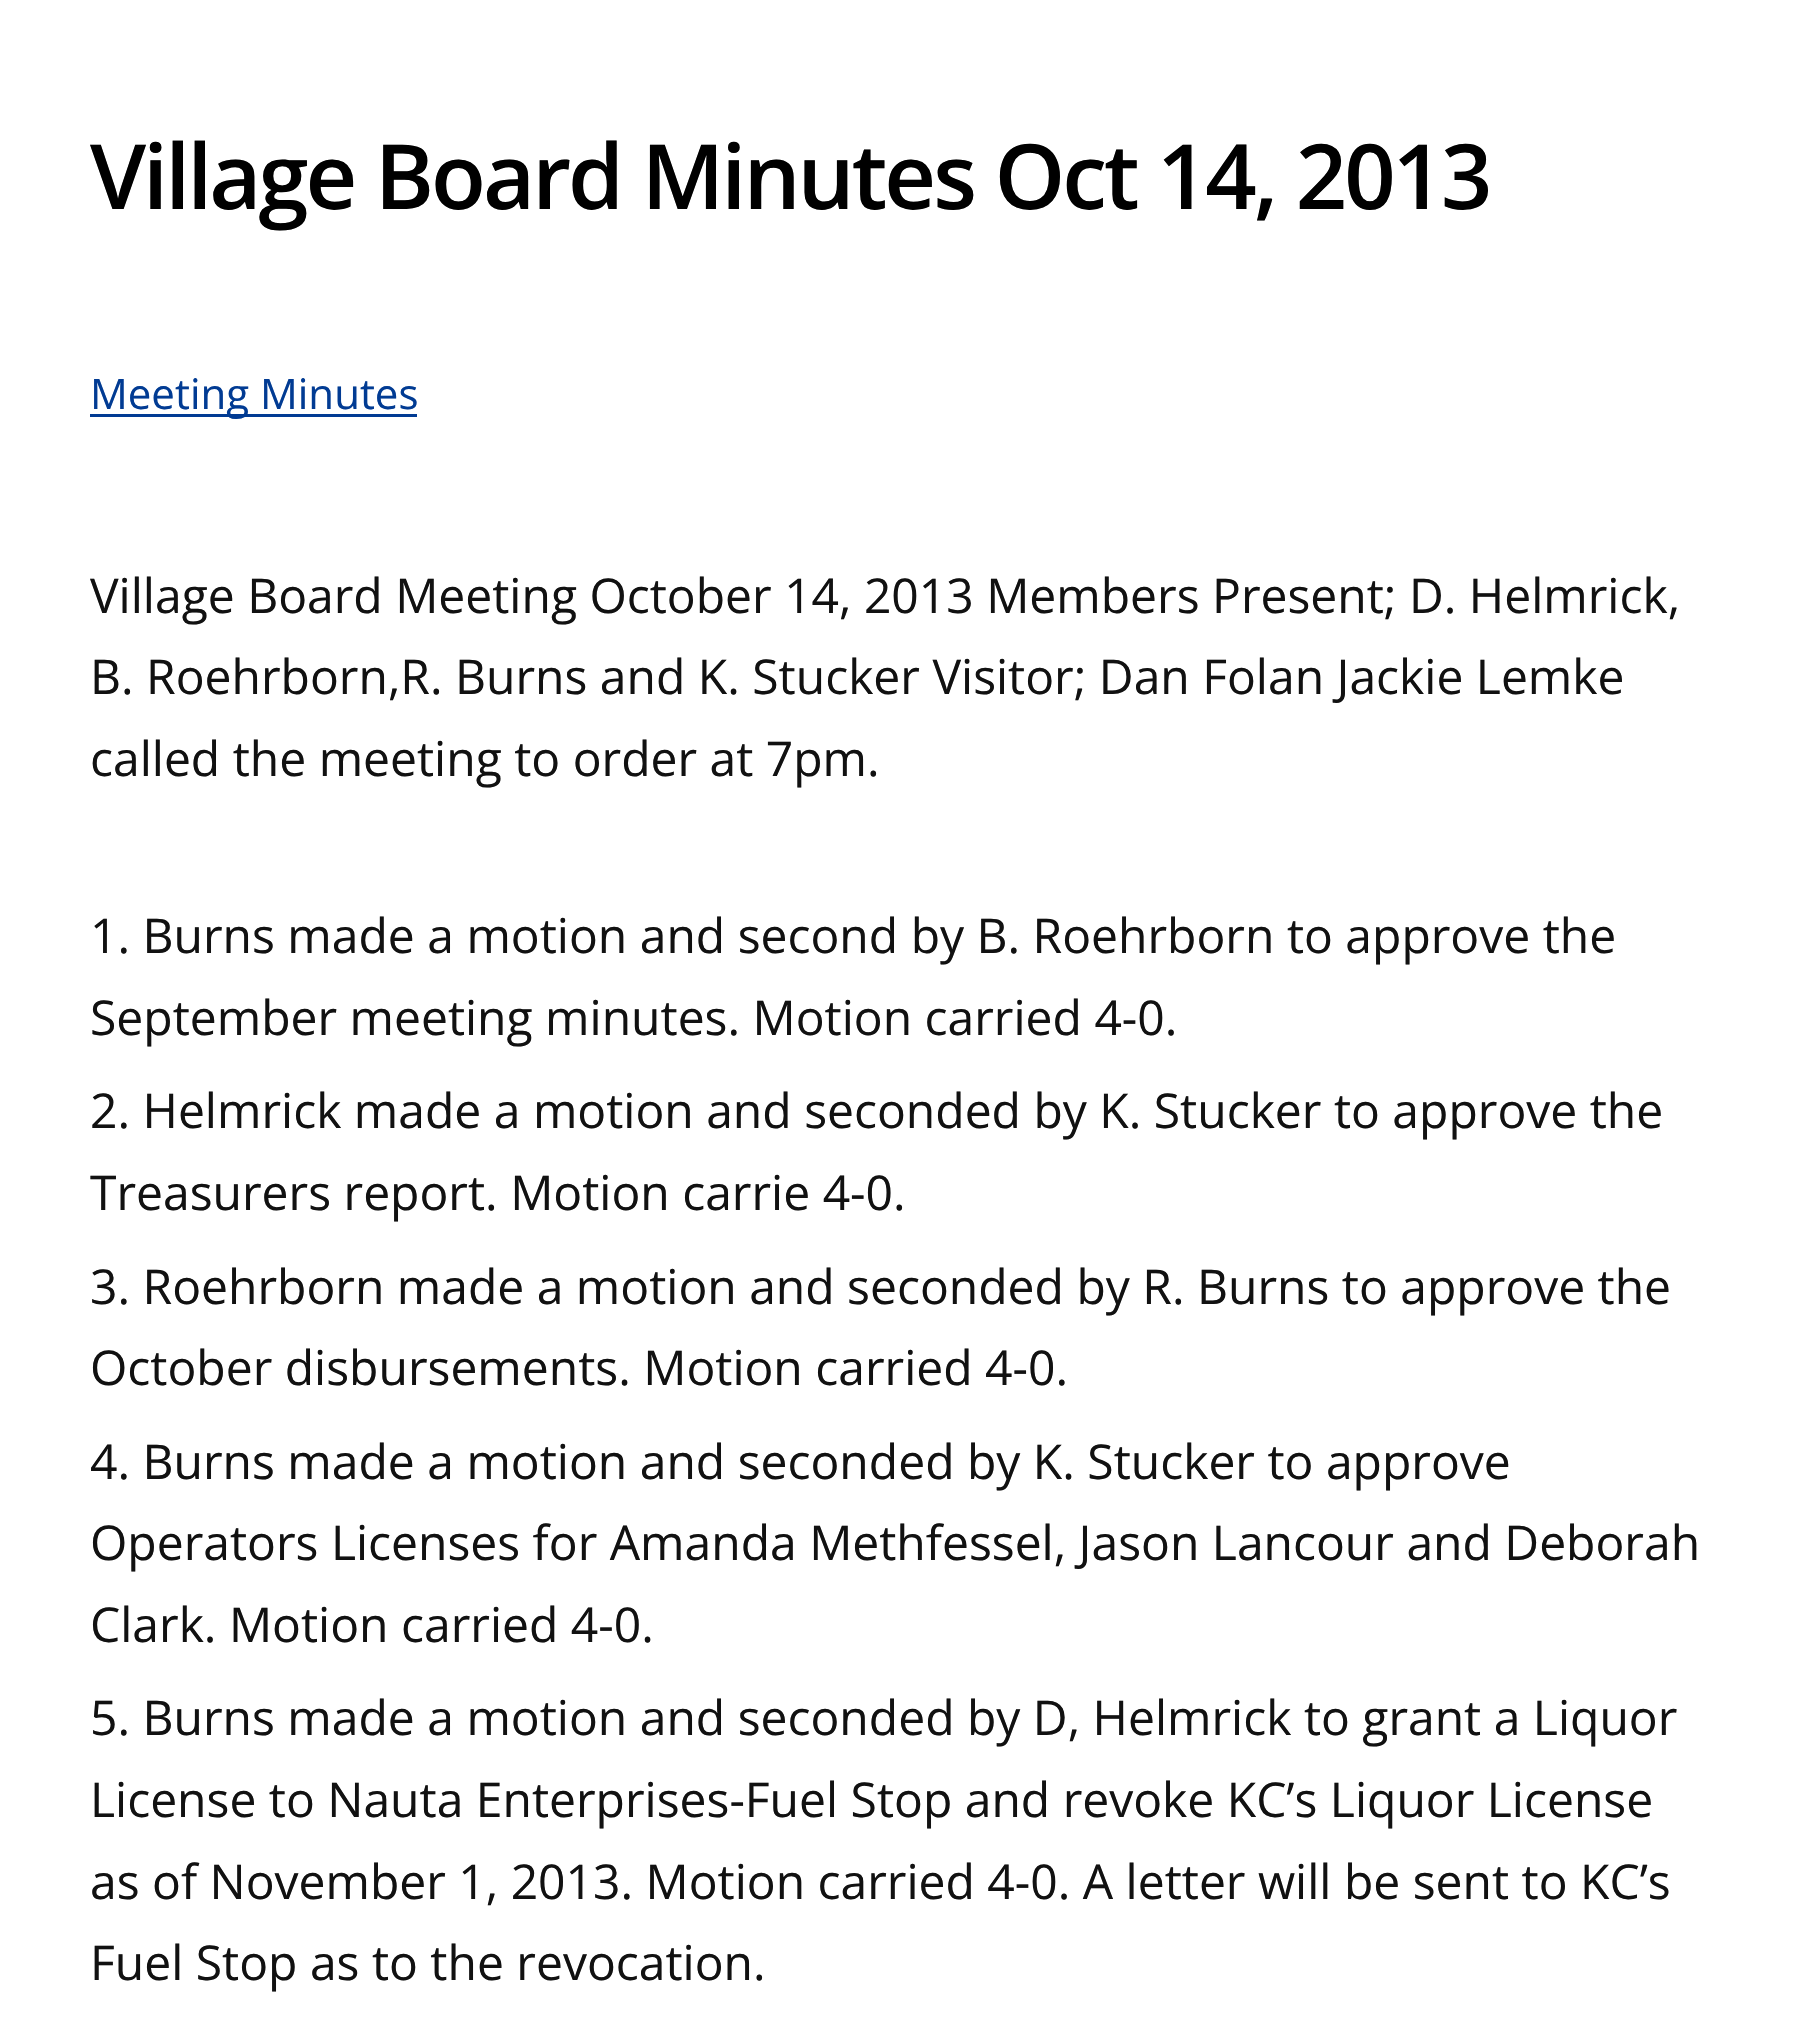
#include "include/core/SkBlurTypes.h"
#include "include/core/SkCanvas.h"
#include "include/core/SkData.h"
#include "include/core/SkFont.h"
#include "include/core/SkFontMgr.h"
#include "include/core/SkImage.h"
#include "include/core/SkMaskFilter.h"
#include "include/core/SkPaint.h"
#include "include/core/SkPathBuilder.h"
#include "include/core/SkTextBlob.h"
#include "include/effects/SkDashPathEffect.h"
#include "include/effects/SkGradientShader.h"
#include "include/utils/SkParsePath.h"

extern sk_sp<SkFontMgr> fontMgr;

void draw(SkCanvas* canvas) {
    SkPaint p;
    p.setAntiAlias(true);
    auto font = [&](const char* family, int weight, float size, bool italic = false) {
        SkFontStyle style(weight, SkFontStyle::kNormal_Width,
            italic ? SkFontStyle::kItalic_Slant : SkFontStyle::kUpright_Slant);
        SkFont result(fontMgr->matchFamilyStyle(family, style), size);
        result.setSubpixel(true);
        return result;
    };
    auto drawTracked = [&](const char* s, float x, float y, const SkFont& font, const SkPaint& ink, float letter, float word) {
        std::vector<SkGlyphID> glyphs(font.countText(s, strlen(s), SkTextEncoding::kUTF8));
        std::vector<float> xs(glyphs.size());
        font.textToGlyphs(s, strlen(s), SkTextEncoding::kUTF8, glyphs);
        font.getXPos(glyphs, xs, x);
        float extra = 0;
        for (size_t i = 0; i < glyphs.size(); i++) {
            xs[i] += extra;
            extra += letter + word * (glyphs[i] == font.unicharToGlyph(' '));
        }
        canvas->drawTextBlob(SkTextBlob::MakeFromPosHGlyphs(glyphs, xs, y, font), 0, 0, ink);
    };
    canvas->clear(0xFFFFFFFF);
    auto font1 = font("Open Sans", 600, 90);
    p.setColor(0xFF000000);
    drawTracked("Village Board Minutes Oct 14, 2013", 90, 209, font1, p, -3, 0);
    p.setColor(0xFF013B93);
    canvas->drawRect(SkRect::MakeLTRB(90, 414, 417, 417), p);
    auto font2 = font("Open Sans", 400, 42);
    canvas->drawString("Meeting Minutes", 90, 409, font2, p);
    auto font3 = font("Open Sans", 400, 48);
    p.setColor(0xFF111111);
    {
        const struct { const char* s; float x, y; } items[] = {
            {"Village Board Meeting October 14, 2013 Members Present; D. Helmrick,", 90, 613},
            {"B. Roehrborn,R. Burns and K. Stucker Visitor; Dan Folan Jackie Lemke", 90, 694},
            {"called the meeting to order at 7pm.", 90, 776},
            {"1. Burns made a motion and second by B. Roehrborn to approve the", 90, 953},
            {"September meeting minutes. Motion carried 4-0.", 90, 1035},
            {"2. Helmrick made a motion and seconded by K. Stucker to approve the", 90, 1128},
            {"Treasurers report. Motion carrie 4-0.", 90, 1210},
            {"3. Roehrborn made a motion and seconded by R. Burns to approve the", 90, 1304},
            {"October disbursements. Motion carried 4-0.", 90, 1385},
            {"4. Burns made a motion and seconded by K. Stucker to approve", 90, 1479},
            {"Operators Licenses for Amanda Methfessel, Jason Lancour and Deborah", 90, 1560},
            {"Clark. Motion carried 4-0.", 90, 1642},
            {"5. Burns made a motion and seconded by D, Helmrick to grant a Liquor", 90, 1735},
            {"License to Nauta Enterprises-Fuel Stop and revoke KC’s Liquor License", 90, 1817},
            {"as of November 1, 2013. Motion carried 4-0. A letter will be sent to KC’s", 90, 1899},
            {"Fuel Stop as to the revocation.", 90, 1980},
        };
        for (auto [s, x, y] : items) {
            canvas->drawString(s, x, y, font3, p);
        }
    }
}
